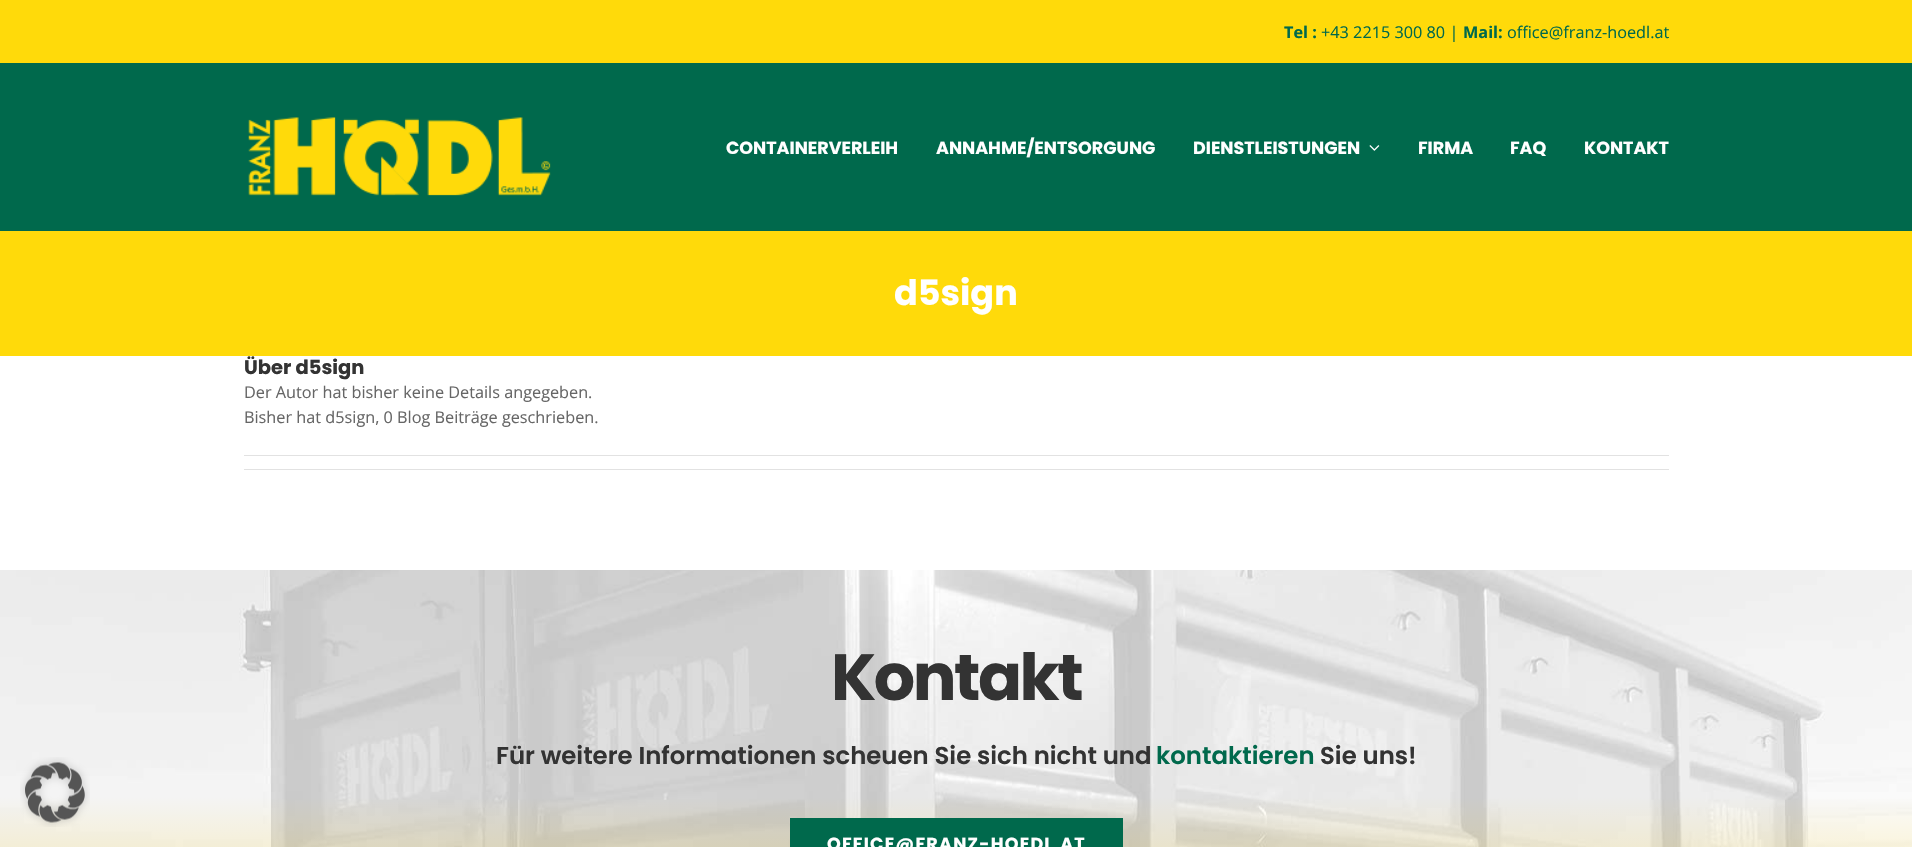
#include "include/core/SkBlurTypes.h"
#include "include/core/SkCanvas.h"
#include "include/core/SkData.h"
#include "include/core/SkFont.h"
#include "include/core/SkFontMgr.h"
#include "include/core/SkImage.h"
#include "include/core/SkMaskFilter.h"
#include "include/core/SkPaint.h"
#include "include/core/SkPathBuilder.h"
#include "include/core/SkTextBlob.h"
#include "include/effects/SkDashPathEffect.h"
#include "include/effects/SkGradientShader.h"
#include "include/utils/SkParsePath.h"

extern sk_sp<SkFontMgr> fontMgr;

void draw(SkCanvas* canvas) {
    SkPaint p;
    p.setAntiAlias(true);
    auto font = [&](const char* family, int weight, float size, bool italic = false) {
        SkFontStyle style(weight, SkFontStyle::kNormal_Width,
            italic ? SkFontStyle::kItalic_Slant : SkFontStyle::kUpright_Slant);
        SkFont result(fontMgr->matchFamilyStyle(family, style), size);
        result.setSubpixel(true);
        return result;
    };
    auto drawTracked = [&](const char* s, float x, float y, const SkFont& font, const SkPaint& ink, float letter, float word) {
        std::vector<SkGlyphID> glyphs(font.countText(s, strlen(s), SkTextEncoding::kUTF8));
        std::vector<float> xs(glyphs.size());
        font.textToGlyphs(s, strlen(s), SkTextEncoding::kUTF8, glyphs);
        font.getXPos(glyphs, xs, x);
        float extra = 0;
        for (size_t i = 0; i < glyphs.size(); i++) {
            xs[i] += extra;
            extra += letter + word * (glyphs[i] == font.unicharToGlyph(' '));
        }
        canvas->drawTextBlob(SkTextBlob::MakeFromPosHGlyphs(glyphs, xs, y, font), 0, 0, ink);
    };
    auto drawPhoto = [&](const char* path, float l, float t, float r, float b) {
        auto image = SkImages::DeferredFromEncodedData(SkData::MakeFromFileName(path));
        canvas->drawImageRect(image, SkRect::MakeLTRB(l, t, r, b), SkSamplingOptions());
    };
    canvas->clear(0xFFFFFFFF);
    drawPhoto("media/4.png", 0, 570, 1912, 847);
    drawPhoto("media/1.png", 20, 757, 90, 827);
    p.setColor(0xFFFFDA0A);
    canvas->drawRect(SkRect::MakeLTRB(0, 0, 1912, 63), p);
    auto font1 = font("Open Sans", 700, 16.25f);
    p.setColor(0xFF00694C);
    canvas->drawString("Tel :", 1284, 38, font1, p);
    auto font2 = font("Open Sans", 400, 16.25f);
    canvas->drawString("+43 2215 300 80 |", 1321, 38, font2, p);
    canvas->drawString("Mail:", 1463, 38, font1, p);
    canvas->drawString("office@franz-hoedl.at", 1507, 38, font2, p);
    canvas->drawRect(SkRect::MakeLTRB(0, 63, 1912, 231), p);
    drawPhoto("media/2.png", 248, 117, 551, 196);
    auto font3 = font("Poppins", 700, 17.5f);
    p.setColor(0xFFFFFFFF);
    {
        const struct { const char* s; float x, y; } items[] = {
            {"CONTAINERVERLEIH", 726, 154},
            {"ANNAHME/ENTSORGUNG", 936, 154},
            {"DIENSTLEISTUNGEN", 1193, 154},
        };
        for (auto [s, x, y] : items) {
            canvas->drawString(s, x, y, font3, p);
        }
    }
    drawPhoto("media/3.png", 1369, 145, 1380, 151);
    {
        const struct { const char* s; float x, y; } items[] = {
            {"FIRMA", 1418, 154},
            {"FAQ", 1510, 154},
            {"KONTAKT", 1584, 154},
        };
        for (auto [s, x, y] : items) {
            canvas->drawString(s, x, y, font3, p);
        }
    }
    p.setColor(0xFFFFDA0A);
    canvas->drawRect(SkRect::MakeLTRB(0, 231, 1912, 356), p);
    auto font4 = font("Poppins", 700, 35);
    p.setColor(0xFFFFFFFF);
    canvas->drawString("d5sign", 894, 305, font4, p);
    auto font5 = font("Poppins", 700, 19.5f);
    p.setColor(0xFF333333);
    canvas->drawString("Über d5sign", 244, 374, font5, p);
    p.setColor(0xFF666666);
    canvas->drawString("Der Autor hat bisher keine Details angegeben.", 244, 398, font2, p);
    canvas->drawString("Bisher hat d5sign, 0 Blog Beiträge geschrieben.", 244, 423, font2, p);
    p.setColor(0xFFE2E2E2);
    canvas->drawRect(SkRect::MakeLTRB(244, 455, 1669, 456), p);
    canvas->drawRect(SkRect::MakeLTRB(244, 469, 1669, 470), p);
    auto font6 = font("Poppins", 700, 65);
    p.setColor(0xFF333333);
    drawTracked("Kontakt", 831, 700, font6, p, -2.5f, 0);
    auto font7 = font("Poppins", 600, 24.4f);
    canvas->drawString("Für weitere Informationen scheuen Sie sich nicht und", 496, 764, font7, p);
    p.setColor(0xFF00694C);
    canvas->drawString("kontaktieren", 1156, 764, font7, p);
    p.setColor(0xFF333333);
    canvas->drawString("Sie uns!", 1320, 764, font7, p);
    p.setColor(0xFF00694C);
    canvas->drawRect(SkRect::MakeLTRB(790, 818, 1123, 847), p);
    p.setColor(0xFFFFFFFF);
    drawTracked("OFFICE@FRANZ-HOEDL.AT", 827, 850, font3, p, 1.25f, 0);
}
